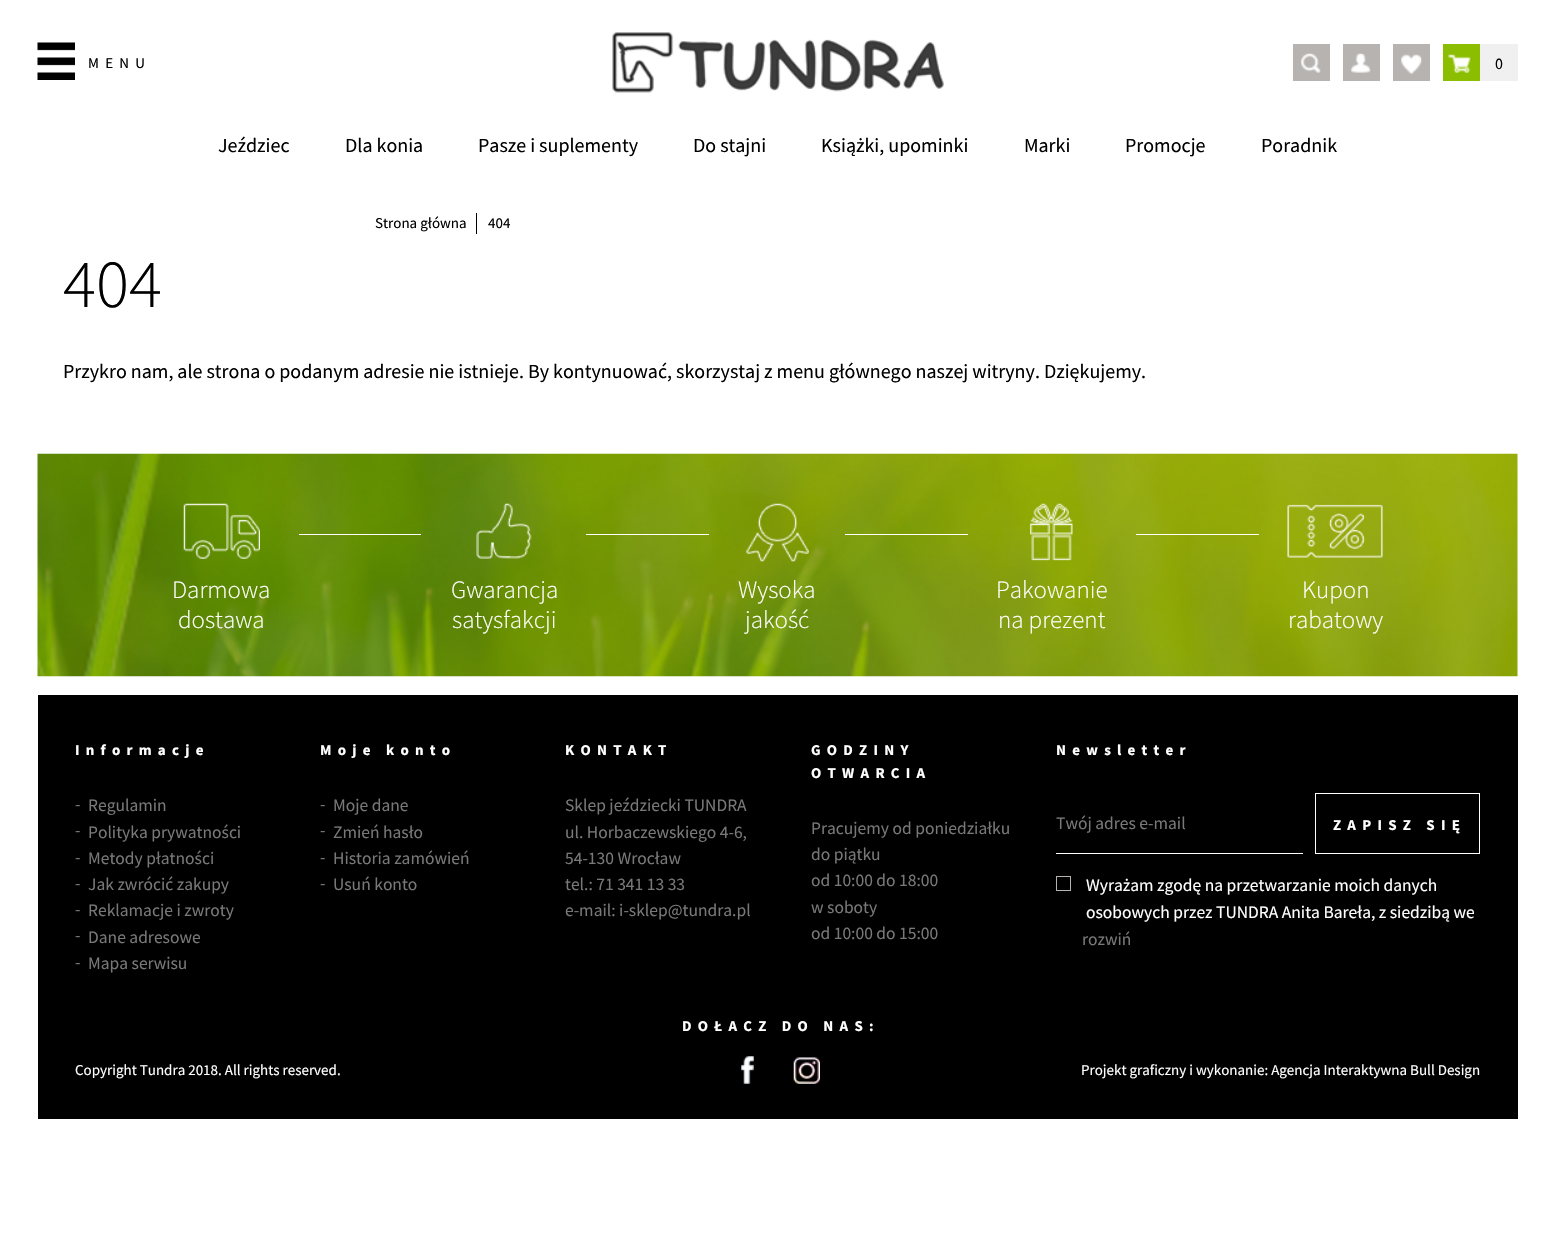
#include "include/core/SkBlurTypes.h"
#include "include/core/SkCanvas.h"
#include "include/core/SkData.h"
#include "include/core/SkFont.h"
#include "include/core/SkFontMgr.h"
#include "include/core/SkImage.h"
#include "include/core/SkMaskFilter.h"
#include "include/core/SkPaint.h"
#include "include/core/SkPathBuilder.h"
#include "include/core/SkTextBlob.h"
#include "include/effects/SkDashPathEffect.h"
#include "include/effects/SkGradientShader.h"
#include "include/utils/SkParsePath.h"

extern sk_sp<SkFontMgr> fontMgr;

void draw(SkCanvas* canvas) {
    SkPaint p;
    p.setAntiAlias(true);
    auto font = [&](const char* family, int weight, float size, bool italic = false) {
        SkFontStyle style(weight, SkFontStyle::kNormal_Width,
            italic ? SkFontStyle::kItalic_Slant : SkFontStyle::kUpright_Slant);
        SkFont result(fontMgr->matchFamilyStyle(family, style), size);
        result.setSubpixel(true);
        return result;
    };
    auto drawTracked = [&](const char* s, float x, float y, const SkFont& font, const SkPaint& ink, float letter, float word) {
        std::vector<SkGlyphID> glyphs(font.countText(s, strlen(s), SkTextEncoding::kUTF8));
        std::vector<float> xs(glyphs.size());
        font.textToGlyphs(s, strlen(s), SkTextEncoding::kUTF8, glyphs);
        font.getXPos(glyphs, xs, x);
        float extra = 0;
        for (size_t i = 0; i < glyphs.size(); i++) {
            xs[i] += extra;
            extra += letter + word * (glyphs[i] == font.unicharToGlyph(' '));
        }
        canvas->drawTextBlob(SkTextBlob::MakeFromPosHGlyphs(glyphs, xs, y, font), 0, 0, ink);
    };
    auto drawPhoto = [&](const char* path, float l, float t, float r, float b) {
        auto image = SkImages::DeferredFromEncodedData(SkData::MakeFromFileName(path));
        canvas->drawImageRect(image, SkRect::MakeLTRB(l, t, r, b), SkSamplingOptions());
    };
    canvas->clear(0xFFFFFFFF);
    drawPhoto("media/1.png", 37, 42, 75, 80);
    auto font1 = font("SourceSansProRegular", 400, 15);
    p.setColor(0xFF000000);
    drawTracked("MENU", 88, 68, font1, p, 6.25f, 0);
    drawPhoto("media/2.png", 612, 32, 944, 93);
    p.setColor(0xFFB6B3B1);
    canvas->drawRect(SkRect::MakeLTRB(1293, 44, 1330, 81), p);
    drawPhoto("media/3.png", 1301, 53, 1321, 73);
    canvas->drawRect(SkRect::MakeLTRB(1343, 44, 1380, 81), p);
    drawPhoto("media/4.png", 1351, 53, 1371, 73);
    canvas->drawRect(SkRect::MakeLTRB(1393, 44, 1430, 81), p);
    drawPhoto("media/5.png", 1401, 54, 1422, 74);
    p.setColor(0xFFF0F0F0);
    canvas->drawRect(SkRect::MakeLTRB(1480, 44, 1518, 81), p);
    p.setColor(0xFF8BBD00);
    canvas->drawRect(SkRect::MakeLTRB(1443, 44, 1480, 81), p);
    drawPhoto("media/6.png", 1448, 54, 1471, 73);
    auto font2 = font("SourceSansProRegular", 400, 16);
    p.setColor(0xFF000000);
    canvas->drawString("0", 1495, 69, font2, p);
    auto font3 = font("SourceSansProRegular", 400, 20);
    {
        const struct { const char* s; float x, y; } items[] = {
            {"Jeździec", 218, 152},
            {"Dla konia", 345, 152},
            {"Pasze i suplementy", 478, 152},
            {"Do stajni", 693, 152},
            {"Książki, upominki", 821, 152},
            {"Marki", 1024, 152},
            {"Promocje", 1125, 152},
            {"Poradnik", 1261, 152},
        };
        for (auto [s, x, y] : items) {
            canvas->drawString(s, x, y, font3, p);
        }
    }
    canvas->drawRect(SkRect::MakeLTRB(476, 213, 477, 234), p);
    canvas->drawString("Strona główna", 375, 228, font1, p);
    canvas->drawString("404", 488, 228, font1, p);
    auto font4 = font("Source Sans Pro", 300, 69);
    canvas->drawString("404", 63, 307, font4, p);
    canvas->drawString("Przykro nam, ale strona o podanym adresie nie istnieje. By kontynuować, skorzystaj z menu głównego naszej witryny. Dziękujemy.", 63, 378, font3, p);
    drawPhoto("media/7.png", 37, 453, 1518, 677);
    {
        const struct { float l, t, r, b; SkColor color; } items[] = {
            {299, 534, 421, 535, 0xFFFFFFFF},
            {586, 534, 709, 535, 0xFFFFFFFF},
            {845, 534, 968, 535, 0xFFFFFFFF},
            {1136, 534, 1259, 535, 0xFFFFFFFF},
        };
        for (auto [l, t, r, b, color] : items) {
            p.setColor(color);
            canvas->drawRect(SkRect::MakeLTRB(l, t, r, b), p);
        }
    }
    drawPhoto("media/8.png", 183, 503, 260, 559);
    auto font5 = font("Source Sans Pro", 300, 25);
    canvas->drawString("Darmowa", 172, 598, font5, p);
    canvas->drawString("dostawa", 178, 628, font5, p);
    drawPhoto("media/9.png", 476, 503, 532, 559);
    canvas->drawString("Gwarancja", 451, 598, font5, p);
    canvas->drawString("satysfakcji", 452, 628, font5, p);
    drawPhoto("media/10.png", 746, 503, 809, 562);
    canvas->drawString("Wysoka", 738, 598, font5, p);
    canvas->drawString("jakość", 745, 628, font5, p);
    drawPhoto("media/11.png", 1030, 503, 1073, 561);
    canvas->drawString("Pakowanie", 996, 598, font5, p);
    canvas->drawString("na prezent", 998, 628, font5, p);
    drawPhoto("media/12.png", 1287, 504, 1383, 558);
    canvas->drawString("Kupon", 1302, 598, font5, p);
    canvas->drawString("rabatowy", 1288, 628, font5, p);
    p.setColor(0xFF000000);
    canvas->drawRect(SkRect::MakeLTRB(38, 695, 1518, 1119), p);
    auto font6 = font("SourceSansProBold", 700, 15);
    p.setColor(0xFFFFFFFF);
    drawTracked("Informacje", 75, 755, font6, p, 6.25f, 0);
    auto font7 = font("SourceSansProRegular", 400, 17.5f);
    p.setColor(0xFF787878);
    {
        const struct { const char* s; float x, y; } items[] = {
            {"-", 75, 810},
            {"Regulamin", 88, 811},
            {"-", 75, 836},
            {"Polityka prywatności", 88, 838},
            {"-", 75, 863},
            {"Metody płatności", 88, 864},
            {"-", 75, 889},
            {"Jak zwrócić zakupy", 88, 890},
            {"-", 75, 915},
            {"Reklamacje i zwroty", 88, 916},
            {"-", 75, 941},
            {"Dane adresowe", 88, 943},
            {"-", 75, 968},
            {"Mapa serwisu", 88, 969},
        };
        for (auto [s, x, y] : items) {
            canvas->drawString(s, x, y, font7, p);
        }
    }
    p.setColor(0xFFFFFFFF);
    drawTracked("Moje konto", 320, 755, font6, p, 6.25f, 0);
    p.setColor(0xFF787878);
    {
        const struct { const char* s; float x, y; } items[] = {
            {"-", 320, 810},
            {"Moje dane", 333, 811},
            {"-", 320, 836},
            {"Zmień hasło", 333, 838},
            {"-", 320, 863},
            {"Historia zamówień", 333, 864},
            {"-", 320, 889},
            {"Usuń konto", 333, 890},
        };
        for (auto [s, x, y] : items) {
            canvas->drawString(s, x, y, font7, p);
        }
    }
    p.setColor(0xFFFFFFFF);
    drawTracked("KONTAKT", 565, 755, font6, p, 6.25f, 0);
    p.setColor(0xFF787878);
    {
        const struct { const char* s; float x, y; } items[] = {
            {"Sklep jeździecki TUNDRA", 565, 811},
            {"ul. Horbaczewskiego 4-6,", 565, 838},
            {"54-130 Wrocław", 565, 864},
            {"tel.: 71 341 13 33", 565, 890},
            {"e-mail: i-sklep@tundra.pl", 565, 916},
        };
        for (auto [s, x, y] : items) {
            canvas->drawString(s, x, y, font7, p);
        }
    }
    p.setColor(0xFFFFFFFF);
    drawTracked("GODZINY", 811, 755, font6, p, 6.25f, 0);
    drawTracked("OTWARCIA", 811, 778, font6, p, 6.25f, 0);
    p.setColor(0xFF787878);
    {
        const struct { const char* s; float x, y; } items[] = {
            {"Pracujemy od poniedziałku", 811, 834},
            {"do piątku", 811, 860},
            {"od 10:00 do 18:00", 811, 886},
            {"w soboty", 811, 913},
            {"od 10:00 do 15:00", 811, 939},
        };
        for (auto [s, x, y] : items) {
            canvas->drawString(s, x, y, font7, p);
        }
    }
    p.setColor(0xFFFFFFFF);
    drawTracked("Newsletter", 1056, 755, font6, p, 6.25f, 0);
    canvas->drawRect(SkRect::MakeLTRB(1056, 853, 1303, 854), p);
    p.setColor(0xFF787878);
    canvas->drawString("Twój adres e-mail", 1056, 829, font7, p);
    p.setStyle(SkPaint::kStroke_Style);
    p.setStrokeWidth(1);
    p.setColor(0xFFFFFFFF);
    canvas->drawRect(SkRect::MakeLTRB(1315.5f, 793.5f, 1479.5f, 853.5f), p);
    p.setStyle(SkPaint::kFill_Style);
    drawTracked("ZAPISZ SIĘ", 1333, 830, font6, p, 6.25f, 0);
    p.setStyle(SkPaint::kStroke_Style);
    p.setColor(0xFFB6B3B1);
    canvas->drawRect(SkRect::MakeLTRB(1056.5f, 876.5f, 1070.5f, 890.5f), p);
    p.setStyle(SkPaint::kFill_Style);
    p.setColor(0xFFFFFFFF);
    canvas->drawString("Wyrażam zgodę na przetwarzanie moich danych", 1086, 891, font7, p);
    canvas->drawString("osobowych przez TUNDRA Anita Bareła, z siedzibą we", 1086, 918, font7, p);
    p.setColor(0xFF787878);
    canvas->drawString("rozwiń", 1082, 945, font7, p);
    p.setColor(0xFFFFFFFF);
    drawTracked("DOŁACZ DO NAS:", 682, 1031, font6, p, 6.25f, 0);
    drawPhoto("media/13.png", 741, 1056, 754, 1084);
    drawPhoto("media/14.png", 793, 1057, 820, 1084);
    canvas->drawString("Copyright Tundra 2018. All rights reserved.", 75, 1075, font1, p);
    canvas->drawString("Projekt graficzny i wykonanie: Agencja Interaktywna Bull Design", 1081, 1075, font1, p);
}
